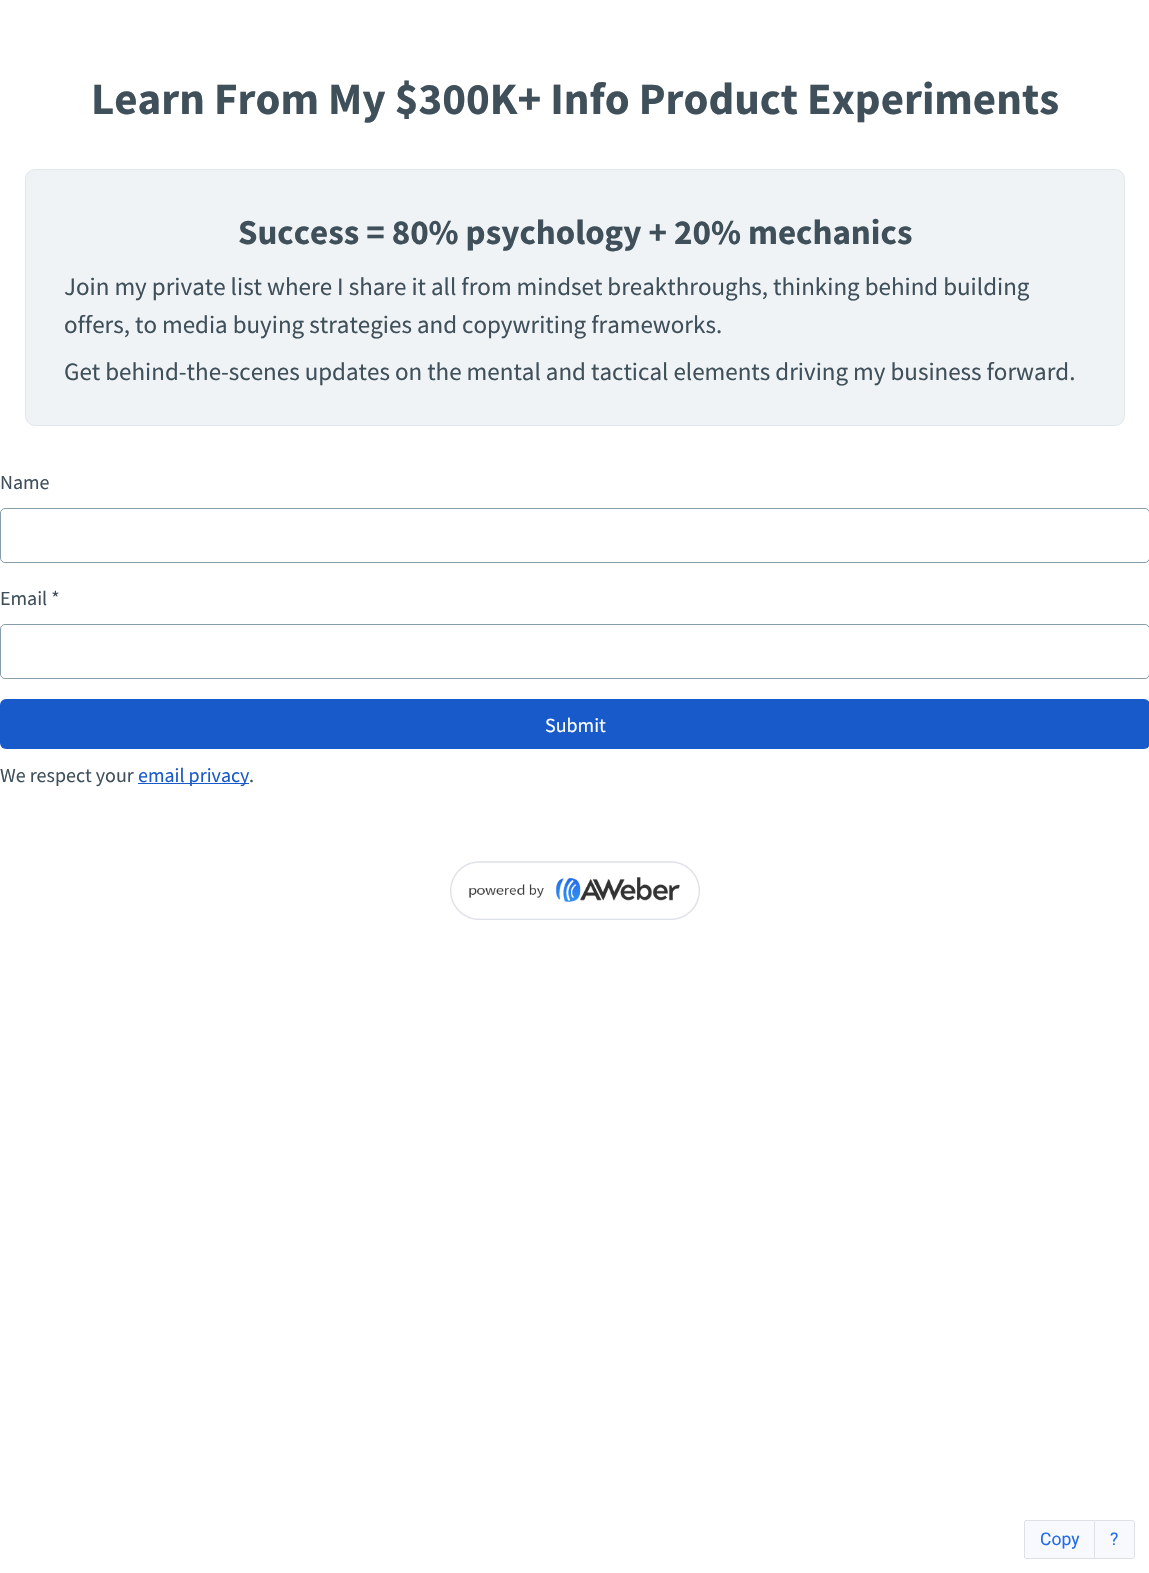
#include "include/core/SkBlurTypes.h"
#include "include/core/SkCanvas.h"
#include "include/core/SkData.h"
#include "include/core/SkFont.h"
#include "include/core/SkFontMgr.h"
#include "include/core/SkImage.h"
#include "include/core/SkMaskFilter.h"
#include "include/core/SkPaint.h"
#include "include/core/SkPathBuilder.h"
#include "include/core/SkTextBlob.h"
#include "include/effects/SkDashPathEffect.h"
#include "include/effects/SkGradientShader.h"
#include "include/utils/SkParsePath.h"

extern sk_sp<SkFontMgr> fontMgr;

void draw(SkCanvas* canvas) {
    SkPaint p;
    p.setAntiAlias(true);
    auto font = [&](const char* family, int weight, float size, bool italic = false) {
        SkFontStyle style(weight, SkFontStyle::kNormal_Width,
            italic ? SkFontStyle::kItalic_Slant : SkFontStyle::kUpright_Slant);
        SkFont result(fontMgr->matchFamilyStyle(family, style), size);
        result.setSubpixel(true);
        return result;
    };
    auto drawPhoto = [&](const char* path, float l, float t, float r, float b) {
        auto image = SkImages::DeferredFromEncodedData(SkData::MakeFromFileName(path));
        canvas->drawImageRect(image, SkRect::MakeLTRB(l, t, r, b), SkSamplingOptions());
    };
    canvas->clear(0xFFFFFFFF);
    auto font1 = font("Source Sans Pro", 700, 45);
    p.setColor(0xFF3F505A);
    canvas->drawString("Learn From My $300K+ Info Product Experiments", 91, 114, font1, p);
    p.setColor(0xFFF0F3F5);
    canvas->drawRoundRect(SkRect::MakeLTRB(25.5f, 169.5f, 1124.5f, 425.5f), 9.5f, 9.5f, p);
    p.setStyle(SkPaint::kStroke_Style);
    p.setStrokeWidth(1);
    p.setColor(0xFFE1E7EA);
    canvas->drawRoundRect(SkRect::MakeLTRB(25.5f, 169.5f, 1124.5f, 425.5f), 9.5f, 9.5f, p);
    auto font2 = font("Source Sans Pro", 700, 35);
    p.setStyle(SkPaint::kFill_Style);
    p.setColor(0xFF3F505A);
    canvas->drawString("Success = 80% psychology + 20% mechanics", 238, 244, font2, p);
    auto font3 = font("Source Sans Pro", 400, 25);
    {
        const struct { const char* s; float x, y; } items[] = {
            {"Join my private list where I share it all from mindset breakthroughs, thinking behind building", 64, 295},
            {"offers, to media buying strategies and copywriting frameworks.", 64, 333},
            {"Get behind-the-scenes updates on the mental and tactical elements driving my business forward.", 64, 380},
        };
        for (auto [s, x, y] : items) {
            canvas->drawString(s, x, y, font3, p);
        }
    }
    auto font4 = font("Source Sans Pro", 400, 20);
    canvas->drawString("Name", 0, 489, font4, p);
    p.setStyle(SkPaint::kStroke_Style);
    p.setColor(0xFF879DAB);
    canvas->drawRoundRect(SkRect::MakeLTRB(0.5f, 508.5f, 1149.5f, 562.5f), 4.5f, 4.5f, p);
    p.setStyle(SkPaint::kFill_Style);
    p.setColor(0xFF3F505A);
    canvas->drawString("Email *", 0, 605, font4, p);
    p.setStyle(SkPaint::kStroke_Style);
    p.setColor(0xFF879DAB);
    canvas->drawRoundRect(SkRect::MakeLTRB(0.5f, 624.5f, 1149.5f, 678.5f), 4.5f, 4.5f, p);
    p.setStyle(SkPaint::kFill_Style);
    p.setColor(0xFF195ACA);
    canvas->drawRoundRect(SkRect::MakeLTRB(0, 699, 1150, 749), 6, 6, p);
    p.setColor(0xFFFFFFFF);
    canvas->drawString("Submit", 545, 732, font4, p);
    p.setColor(0xFF3F505A);
    canvas->drawString("We respect your", 0, 782, font4, p);
    p.setColor(0xFF195ACA);
    canvas->drawRect(SkRect::MakeLTRB(138, 783, 249, 784), p);
    canvas->drawString("email privacy", 138, 782, font4, p);
    p.setColor(0xFF3F505A);
    canvas->drawString(".", 249, 782, font4, p);
    drawPhoto("media/1.png", 450, 861, 700, 920);
    p.setColor(0xFFF7F9FC);
    canvas->drawPath(SkPathBuilder().moveTo(1026.5f, 1520).lineTo(1094, 1520).lineTo(1094, 1559).lineTo(1026.5f, 1559).cubicTo(1025, 1559, 1024, 1558, 1024, 1556.5f).lineTo(1024, 1522.5f).cubicTo(1024, 1521, 1025, 1520, 1026.5f, 1520).close().detach(), p);
    {
        const struct { float l, t, r, b; SkColor color; } items[] = {
            {1025, 1520, 1094, 1521, 0xFFDEE0E8},
            {1025, 1558, 1094, 1559, 0xFFDEE0E8},
            {1024, 1521, 1025, 1558, 0xFFDEE0E8},
        };
        for (auto [l, t, r, b, color] : items) {
            p.setColor(color);
            canvas->drawRect(SkRect::MakeLTRB(l, t, r, b), p);
        }
    }
    auto font5 = font("Heebo", 400, 17.5f);
    p.setColor(0xFF246BE8);
    canvas->drawString("Copy", 1040, 1545, font5, p);
    p.setColor(0xFFF7F9FC);
    canvas->drawPath(SkPathBuilder().moveTo(1094.5f, 1520.5f).lineTo(1132.5f, 1520.5f).cubicTo(1133.5f, 1520.5f, 1134.5f, 1521.5f, 1134.5f, 1522.5f).lineTo(1134.5f, 1556.5f).cubicTo(1134.5f, 1557.5f, 1133.5f, 1558.5f, 1132.5f, 1558.5f).lineTo(1094.5f, 1558.5f).close().detach(), p);
    p.setStyle(SkPaint::kStroke_Style);
    p.setColor(0xFFDEE0E8);
    canvas->drawPath(SkPathBuilder().moveTo(1094.5f, 1520.5f).lineTo(1132.5f, 1520.5f).cubicTo(1133.5f, 1520.5f, 1134.5f, 1521.5f, 1134.5f, 1522.5f).lineTo(1134.5f, 1556.5f).cubicTo(1134.5f, 1557.5f, 1133.5f, 1558.5f, 1132.5f, 1558.5f).lineTo(1094.5f, 1558.5f).close().detach(), p);
    p.setStyle(SkPaint::kFill_Style);
    p.setColor(0xFF246BE8);
    canvas->drawString("?", 1110, 1545, font5, p);
}
